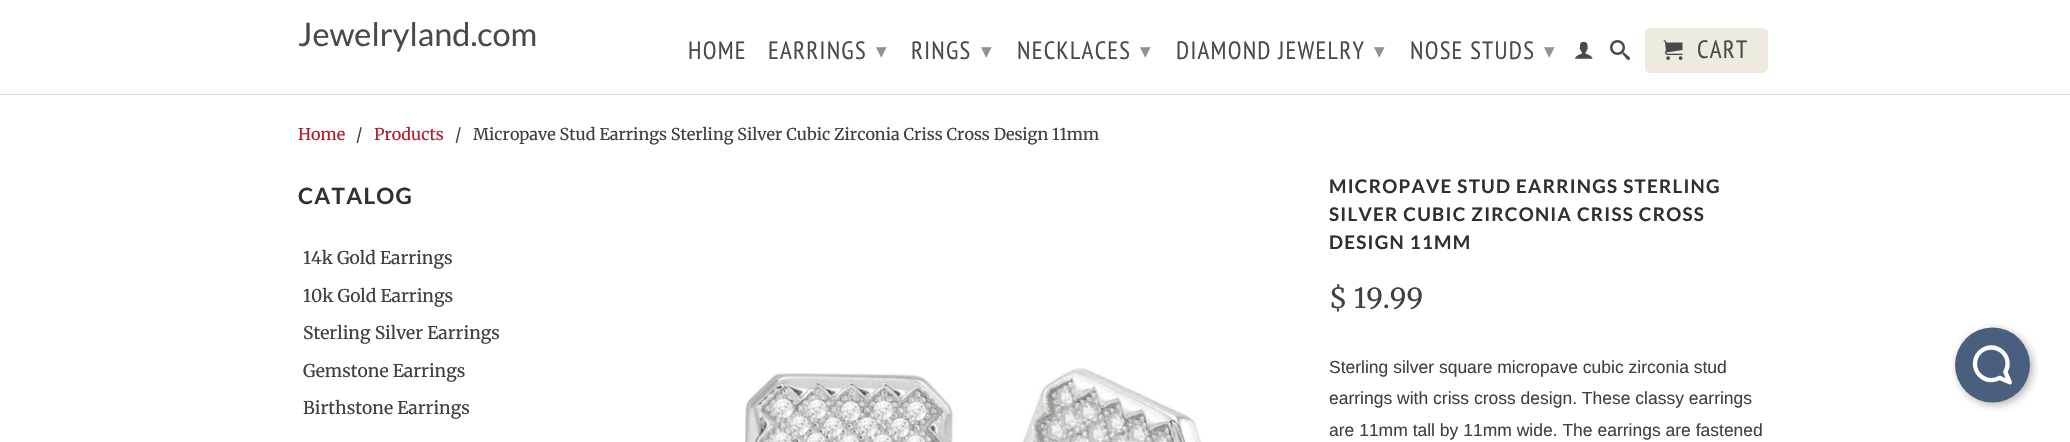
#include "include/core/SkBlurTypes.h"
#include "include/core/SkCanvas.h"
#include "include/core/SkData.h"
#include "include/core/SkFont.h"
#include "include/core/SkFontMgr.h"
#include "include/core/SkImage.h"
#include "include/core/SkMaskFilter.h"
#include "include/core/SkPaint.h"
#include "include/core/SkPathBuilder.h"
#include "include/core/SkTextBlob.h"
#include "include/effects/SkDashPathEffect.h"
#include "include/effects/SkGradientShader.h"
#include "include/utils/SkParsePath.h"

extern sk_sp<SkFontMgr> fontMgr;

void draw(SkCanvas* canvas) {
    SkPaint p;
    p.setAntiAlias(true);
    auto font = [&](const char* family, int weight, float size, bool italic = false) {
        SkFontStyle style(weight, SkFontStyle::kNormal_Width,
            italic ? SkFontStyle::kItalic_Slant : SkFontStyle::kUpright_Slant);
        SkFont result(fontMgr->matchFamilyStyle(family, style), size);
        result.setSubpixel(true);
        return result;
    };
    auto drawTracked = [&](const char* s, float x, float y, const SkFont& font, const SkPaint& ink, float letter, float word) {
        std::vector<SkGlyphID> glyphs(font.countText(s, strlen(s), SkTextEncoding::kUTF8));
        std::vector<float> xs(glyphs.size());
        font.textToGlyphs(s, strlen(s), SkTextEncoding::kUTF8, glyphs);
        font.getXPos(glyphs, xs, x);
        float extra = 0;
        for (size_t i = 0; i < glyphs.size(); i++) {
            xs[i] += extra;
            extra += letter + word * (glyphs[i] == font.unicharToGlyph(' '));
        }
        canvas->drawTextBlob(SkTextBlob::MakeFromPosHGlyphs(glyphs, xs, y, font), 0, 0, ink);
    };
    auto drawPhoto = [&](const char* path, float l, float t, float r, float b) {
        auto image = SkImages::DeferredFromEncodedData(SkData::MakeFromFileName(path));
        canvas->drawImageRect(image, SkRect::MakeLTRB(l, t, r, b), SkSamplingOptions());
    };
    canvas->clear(0xFFFFFFFF);
    p.setColor(0xFFE0D8CA);
    canvas->drawRect(SkRect::MakeLTRB(0, 94, 2070, 95), p);
    auto font1 = font("Lato", 400, 32.5f);
    p.setColor(0xFF4A4A4A);
    canvas->drawString("Jewelryland.com", 298, 46, font1, p);
    auto font2 = font("PT Sans Narrow", 400, 25);
    drawTracked("HOME", 688, 59, font2, p, 1.25f, 0);
    drawTracked("EARRINGS", 768, 59, font2, p, 1.25f, 0);
    auto font3 = font("DejaVu Sans", 400, 21);
    p.setColor(0xFF929292);
    drawTracked("▾", 876, 58, font3, p, 1.25f, 0);
    p.setColor(0xFF4A4A4A);
    drawTracked("RINGS", 911, 59, font2, p, 1.25f, 0);
    p.setColor(0xFF929292);
    drawTracked("▾", 981, 58, font3, p, 1.25f, 0);
    p.setColor(0xFF4A4A4A);
    drawTracked("NECKLACES", 1017, 59, font2, p, 1.25f, 0);
    p.setColor(0xFF929292);
    drawTracked("▾", 1140, 58, font3, p, 1.25f, 0);
    p.setColor(0xFF4A4A4A);
    drawTracked("DIAMOND JEWELRY", 1176, 59, font2, p, 1.25f, 0);
    p.setColor(0xFF929292);
    drawTracked("▾", 1374, 58, font3, p, 1.25f, 0);
    p.setColor(0xFF4A4A4A);
    drawTracked("NOSE STUDS", 1410, 59, font2, p, 1.25f, 0);
    p.setColor(0xFF929292);
    drawTracked("▾", 1544, 58, font3, p, 1.25f, 0);
    drawPhoto("media/1.png", 1575, 41, 1593, 59);
    drawPhoto("media/2.png", 1610, 40, 1630, 60);
    p.setColor(0xFFEEEADF);
    canvas->drawRoundRect(SkRect::MakeLTRB(1645, 28, 1768, 73), 5, 5, p);
    drawPhoto("media/3.png", 1663, 40, 1683, 60);
    p.setColor(0xFF4A4A4A);
    drawTracked("CART", 1697, 58, font2, p, 1.25f, 0);
    auto font4 = font("Merriweather", 400, 16.25f);
    p.setColor(0xFFAF1F31);
    canvas->drawString("Home", 298, 140, font4, p);
    p.setColor(0xFF404040);
    canvas->drawString("/", 356, 140, font4, p);
    p.setColor(0xFFAF1F31);
    canvas->drawString("Products", 374, 140, font4, p);
    p.setColor(0xFF404040);
    canvas->drawString("/", 455, 140, font4, p);
    canvas->drawString("Micropave Stud Earrings Sterling Silver Cubic Zirconia Criss Cross Design 11mm", 473, 140, font4, p);
    auto font5 = font("Lato", 700, 22.5f);
    p.setColor(0xFF303030);
    drawTracked("CATALOG", 298, 204, font5, p, 1.25f, 0);
    auto font6 = font("Merriweather", 400, 17.5f);
    p.setColor(0xFF404040);
    {
        const struct { const char* s; float x, y; } items[] = {
            {"14k Gold Earrings", 303, 264},
            {"10k Gold Earrings", 303, 302},
            {"Sterling Silver Earrings", 303, 339},
            {"Gemstone Earrings", 303, 377},
            {"Birthstone Earrings", 303, 414},
        };
        for (auto [s, x, y] : items) {
            canvas->drawString(s, x, y, font6, p);
        }
    }
    drawPhoto("media/4.png", 744, 368, 1201, 442);
    auto font7 = font("Lato", 700, 18.75f);
    p.setColor(0xFF303030);
    {
        const struct { const char* s; float x, y; } items[] = {
            {"MICROPAVE STUD EARRINGS STERLING", 1329, 193},
            {"SILVER CUBIC ZIRCONIA CRISS CROSS", 1329, 221},
            {"DESIGN 11MM", 1329, 249},
        };
        for (auto [s, x, y] : items) {
            drawTracked(s, x, y, font7, p, 1.25f, 0);
        }
    }
    auto font8 = font("Merriweather", 400, 27.5f);
    p.setColor(0xFF404040);
    canvas->drawString("$ 19.99", 1329, 308, font8, p);
    auto font9 = font("Liberation Sans", 400, 17.5f);
    {
        const struct { const char* s; float x, y; } items[] = {
            {"Sterling silver square micropave cubic zirconia stud", 1329, 373},
            {"earrings with criss cross design. These classy earrings", 1329, 404},
            {"are 11mm tall by 11mm wide. The earrings are fastened", 1329, 436},
        };
        for (auto [s, x, y] : items) {
            canvas->drawString(s, x, y, font9, p);
        }
    }
    drawPhoto("media/5.png", 1952, 324, 2038, 411);
}
